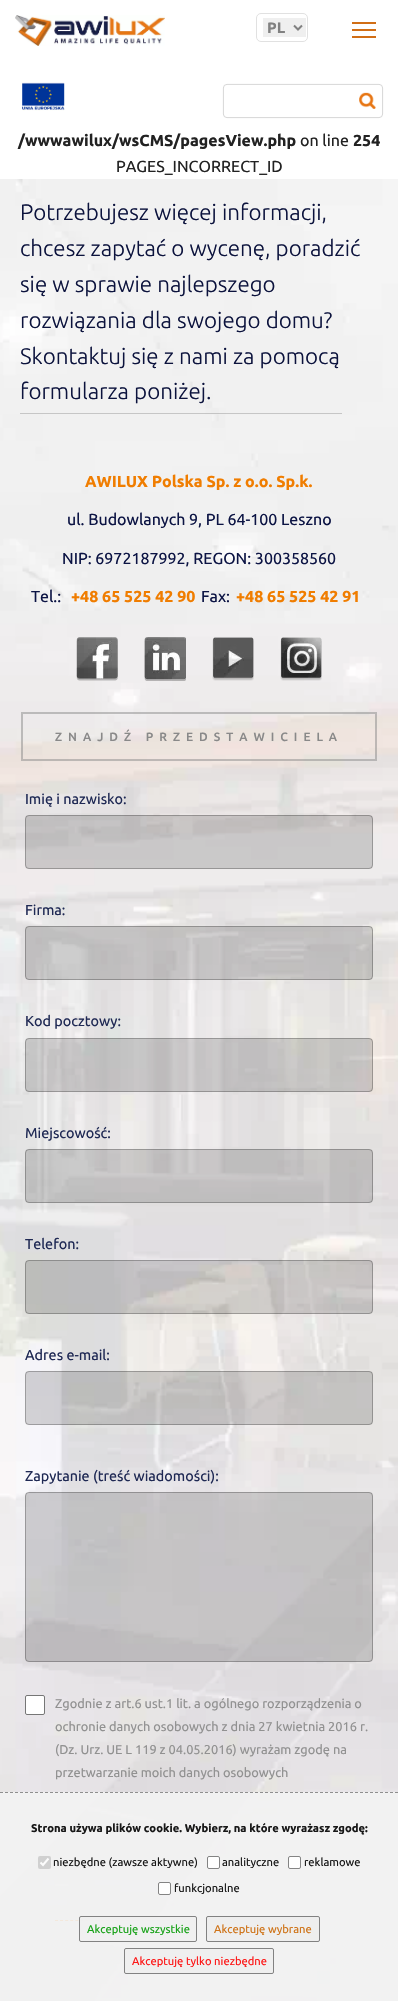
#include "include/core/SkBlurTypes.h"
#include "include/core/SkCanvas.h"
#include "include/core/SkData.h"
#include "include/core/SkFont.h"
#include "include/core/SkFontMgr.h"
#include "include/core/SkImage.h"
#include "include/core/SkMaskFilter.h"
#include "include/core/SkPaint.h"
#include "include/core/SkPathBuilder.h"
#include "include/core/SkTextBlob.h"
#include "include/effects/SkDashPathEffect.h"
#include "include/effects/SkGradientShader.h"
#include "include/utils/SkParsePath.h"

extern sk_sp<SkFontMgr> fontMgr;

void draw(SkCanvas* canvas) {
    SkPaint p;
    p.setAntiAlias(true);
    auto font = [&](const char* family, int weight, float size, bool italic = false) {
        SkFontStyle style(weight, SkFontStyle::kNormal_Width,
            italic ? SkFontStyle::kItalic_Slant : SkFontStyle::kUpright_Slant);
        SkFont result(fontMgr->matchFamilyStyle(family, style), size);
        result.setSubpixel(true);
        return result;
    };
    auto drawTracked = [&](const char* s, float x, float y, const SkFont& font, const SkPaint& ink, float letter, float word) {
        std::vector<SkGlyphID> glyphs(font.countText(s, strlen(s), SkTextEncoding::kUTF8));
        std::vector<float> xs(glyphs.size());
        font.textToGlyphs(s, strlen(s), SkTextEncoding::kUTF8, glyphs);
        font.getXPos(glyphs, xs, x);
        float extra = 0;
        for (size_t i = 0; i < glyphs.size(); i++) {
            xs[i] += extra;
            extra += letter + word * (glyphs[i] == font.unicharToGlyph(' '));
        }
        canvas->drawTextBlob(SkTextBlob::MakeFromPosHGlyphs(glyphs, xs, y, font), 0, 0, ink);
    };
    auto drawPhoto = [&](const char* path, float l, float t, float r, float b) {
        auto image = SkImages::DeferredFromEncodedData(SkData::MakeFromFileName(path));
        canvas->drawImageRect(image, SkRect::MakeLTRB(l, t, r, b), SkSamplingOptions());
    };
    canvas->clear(0xFFFFFFFF);
    drawPhoto("media/1.png", 15, 15, 165, 46);
    p.setStyle(SkPaint::kStroke_Style);
    p.setStrokeWidth(1);
    p.setColor(0xFFE1E1E1);
    canvas->drawRoundRect(SkRect::MakeLTRB(256.5f, 13.5f, 307.5f, 41.5f), 4.5f, 4.5f, p);
    p.setStyle(SkPaint::kFill_Style);
    p.setColor(0xFFEFEFEF);
    canvas->drawRect(SkRect::MakeLTRB(263, 18, 306, 37), p);
    p.setStyle(SkPaint::kStroke_Style);
    p.setStrokeWidth(2);
    p.setColor(0xFF818181);
    canvas->drawPath(SkPathBuilder().moveTo(294, 25.5f).lineTo(298, 29.5f).lineTo(302, 25.5f).detach(), p);
    auto font1 = font("Ubuntu", 700, 15);
    p.setStyle(SkPaint::kFill_Style);
    canvas->drawString("PL", 267, 33, font1, p);
    p.setStyle(SkPaint::kStroke_Style);
    p.setStrokeWidth(0.8f);
    p.setColor(0xFFCCCCCC);
    canvas->drawRoundRect(SkRect::MakeLTRB(223.4f, 84.4f, 382.6f, 117.6f), 3.6f, 3.6f, p);
    drawPhoto("media/2.png", 359, 92, 376, 109);
    p.setStyle(SkPaint::kFill_Style);
    {
        const struct { float l, t, r, b; SkColor color; } items[] = {
            {352, 29, 376, 31, 0xFFD16E16},
            {352, 22, 376, 24, 0xFFD16E16},
            {352, 36, 376, 38, 0xFFD16E16},
        };
        for (auto [l, t, r, b, color] : items) {
            p.setColor(color);
            canvas->drawRect(SkRect::MakeLTRB(l, t, r, b), p);
        }
    }
    drawPhoto("media/3.png", 22, 82, 65, 111);
    auto font2 = font("Ubuntu", 700, 16);
    p.setColor(0xFF222222);
    canvas->drawString("/wwwawilux/wsCMS/pagesView.php", 18, 146, font2, p);
    auto font3 = font("Ubuntu", 400, 16);
    canvas->drawString("on line", 300, 146, font3, p);
    canvas->drawString("254", 353, 146, font2, p);
    canvas->drawString("PAGES_INCORRECT_ID", 116, 172, font3, p);
    drawPhoto("media/4.png", 0, 179, 398, 2001);
    auto font4 = font("Ubuntu", 300, 22.4f);
    p.setColor(0xFF0C133D);
    {
        const struct { const char* s; float x, y; } items[] = {
            {"Potrzebujesz więcej informacji,", 20, 220},
            {"chcesz zapytać o wycenę, poradzić", 20, 256},
            {"się w sprawie najlepszego", 20, 292},
            {"rozwiązania dla swojego domu?", 20, 328},
            {"Skontaktuj się z nami za pomocą", 20, 364},
            {"formularza poniżej.", 20, 399},
        };
        for (auto [s, x, y] : items) {
            canvas->drawString(s, x, y, font4, p);
        }
    }
    p.setColor(0x4D636363);
    canvas->drawRect(SkRect::MakeLTRB(20, 413, 342, 414), p);
    p.setColor(0xFFF07D00);
    canvas->drawString("AWILUX Polska Sp. z o.o. Sp.k.", 85, 487, font2, p);
    p.setColor(0xFF0C1444);
    {
        const struct { const char* s; float x, y; } items[] = {
            {"ul. Budowlanych 9, PL 64-100 Leszno", 67, 525},
            {"NIP: 6972187992, REGON: 300358560", 62, 564},
            {"Tel.:", 31, 602},
        };
        for (auto [s, x, y] : items) {
            canvas->drawString(s, x, y, font3, p);
        }
    }
    p.setColor(0xFFF07D00);
    canvas->drawString("+48 65 525 42 90", 71, 602, font2, p);
    p.setColor(0xFF0C1444);
    canvas->drawString("Fax:", 201, 602, font3, p);
    p.setColor(0xFFF07D00);
    canvas->drawString("+48 65 525 42 91", 236, 602, font2, p);
    drawPhoto("media/5.png", 76, 637, 118, 681);
    drawPhoto("media/6.png", 144, 637, 186, 681);
    drawPhoto("media/7.png", 212, 637, 254, 681);
    drawPhoto("media/8.png", 280, 637, 322, 681);
    p.setStyle(SkPaint::kStroke_Style);
    p.setStrokeWidth(2);
    p.setColor(0x80898989);
    canvas->drawRect(SkRect::MakeLTRB(22, 713, 376, 760), p);
    auto font5 = font("Ubuntu", 500, 12);
    p.setStyle(SkPaint::kFill_Style);
    p.setColor(0xFF898989);
    drawTracked("ZNAJDŹ PRZEDSTAWICIELA", 55, 741, font5, p, 6, 0);
    auto font6 = font("Ubuntu", 400, 14.4f);
    p.setColor(0xFF1F2954);
    canvas->drawString("Imię i nazwisko:", 25, 804, font6, p);
    p.setColor(0x26000000);
    canvas->drawRoundRect(SkRect::MakeLTRB(25, 815, 373, 869), 4, 4, p);
    p.setStyle(SkPaint::kStroke_Style);
    p.setStrokeWidth(1);
    p.setColor(0x40000000);
    canvas->drawRoundRect(SkRect::MakeLTRB(25.5f, 815.5f, 372.5f, 868.5f), 3.5f, 3.5f, p);
    p.setStyle(SkPaint::kFill_Style);
    p.setColor(0xFF1F2954);
    canvas->drawString("Firma:", 25, 915, font6, p);
    p.setColor(0x26000000);
    canvas->drawRoundRect(SkRect::MakeLTRB(25, 926, 373, 980), 4, 4, p);
    p.setStyle(SkPaint::kStroke_Style);
    p.setColor(0x40000000);
    canvas->drawRoundRect(SkRect::MakeLTRB(25.5f, 926.5f, 372.5f, 979.5f), 3.5f, 3.5f, p);
    p.setStyle(SkPaint::kFill_Style);
    p.setColor(0xFF1F2954);
    canvas->drawString("Kod pocztowy:", 25, 1026, font6, p);
    p.setColor(0x26000000);
    canvas->drawRoundRect(SkRect::MakeLTRB(25, 1038, 373, 1092), 4, 4, p);
    p.setStyle(SkPaint::kStroke_Style);
    p.setColor(0x40000000);
    canvas->drawRoundRect(SkRect::MakeLTRB(25.5f, 1038.5f, 372.5f, 1091.5f), 3.5f, 3.5f, p);
    p.setStyle(SkPaint::kFill_Style);
    p.setColor(0xFF1F2954);
    canvas->drawString("Miejscowość:", 25, 1138, font6, p);
    p.setColor(0x26000000);
    canvas->drawRoundRect(SkRect::MakeLTRB(25, 1149, 373, 1203), 4, 4, p);
    p.setStyle(SkPaint::kStroke_Style);
    p.setColor(0x40000000);
    canvas->drawRoundRect(SkRect::MakeLTRB(25.5f, 1149.5f, 372.5f, 1202.5f), 3.5f, 3.5f, p);
    p.setStyle(SkPaint::kFill_Style);
    p.setColor(0xFF1F2954);
    canvas->drawString("Telefon:", 25, 1249, font6, p);
    p.setColor(0x26000000);
    canvas->drawRoundRect(SkRect::MakeLTRB(25, 1260, 373, 1314), 4, 4, p);
    p.setStyle(SkPaint::kStroke_Style);
    p.setColor(0x40000000);
    canvas->drawRoundRect(SkRect::MakeLTRB(25.5f, 1260.5f, 372.5f, 1313.5f), 3.5f, 3.5f, p);
    p.setStyle(SkPaint::kFill_Style);
    p.setColor(0xFF1F2954);
    canvas->drawString("Adres e-mail:", 25, 1360, font6, p);
    p.setColor(0x26000000);
    canvas->drawRoundRect(SkRect::MakeLTRB(25, 1371, 373, 1425), 4, 4, p);
    p.setStyle(SkPaint::kStroke_Style);
    p.setColor(0x40000000);
    canvas->drawRoundRect(SkRect::MakeLTRB(25.5f, 1371.5f, 372.5f, 1424.5f), 3.5f, 3.5f, p);
    p.setStyle(SkPaint::kFill_Style);
    p.setColor(0xFF1F2954);
    canvas->drawString("Zapytanie (treść wiadomości):", 25, 1481, font6, p);
    p.setColor(0x26000000);
    canvas->drawRoundRect(SkRect::MakeLTRB(25, 1492, 373, 1662), 4, 4, p);
    p.setStyle(SkPaint::kStroke_Style);
    p.setColor(0x40000000);
    canvas->drawRoundRect(SkRect::MakeLTRB(25.5f, 1492.5f, 372.5f, 1661.5f), 3.5f, 3.5f, p);
    p.setStyle(SkPaint::kFill_Style);
    p.setColor(0xFFFFFFFF);
    canvas->drawRoundRect(SkRect::MakeLTRB(25.5f, 1695.5f, 44.5f, 1714.5f), 1.5f, 1.5f, p);
    p.setStyle(SkPaint::kStroke_Style);
    p.setColor(0xFF767676);
    canvas->drawRoundRect(SkRect::MakeLTRB(25.5f, 1695.5f, 44.5f, 1714.5f), 1.5f, 1.5f, p);
    auto font7 = font("Ubuntu", 400, 12.8f);
    p.setStyle(SkPaint::kFill_Style);
    p.setColor(0xFF919191);
    {
        const struct { const char* s; float x, y; } items[] = {
            {"Zgodnie z art.6 ust.1 lit. a ogólnego rozporządzenia o", 55, 1708},
            {"ochronie danych osobowych z dnia 27 kwietnia 2016 r.", 55, 1731},
            {"(Dz. Urz. UE L 119 z 04.05.2016) wyrażam zgodę na", 55, 1754},
            {"przetwarzanie moich danych osobowych", 55, 1777},
        };
        for (auto [s, x, y] : items) {
            canvas->drawString(s, x, y, font7, p);
        }
    }
    p.setStyle(SkPaint::kStroke_Style);
    p.setColor(0xFFF07D00);
    p.setPathEffect(SkDashPathEffect::Make({{3, 2.09f}}, 0));
    canvas->drawPath(SkPathBuilder().moveTo(55, 1920.5f).lineTo(175, 1920.5f).detach(), p);
    p.setPathEffect(nullptr);
    p.setStyle(SkPaint::kFill_Style);
    p.setColor(0xE6F3F3F3);
    canvas->drawRect(SkRect::MakeLTRB(0, 1792, 398, 2001), p);
    p.setStyle(SkPaint::kStroke_Style);
    p.setColor(0xE6848484);
    p.setPathEffect(SkDashPathEffect::Make({{3, 2}}, 0));
    canvas->drawPath(SkPathBuilder().moveTo(0, 1792.5f).lineTo(398, 1792.5f).detach(), p);
    p.setPathEffect(nullptr);
    auto font8 = font("Ubuntu", 700, 11.2f);
    p.setStyle(SkPaint::kFill_Style);
    p.setColor(0xFF181818);
    canvas->drawString("Strona używa plików cookie. Wybierz, na które wyrażasz zgodę:", 31, 1832, font8, p);
    p.setColor(0xFFD0D0D0);
    canvas->drawRoundRect(SkRect::MakeLTRB(38, 1856, 51, 1869), 2, 2, p);
    p.setStyle(SkPaint::kStroke_Style);
    p.setStrokeWidth(2.1f);
    p.setColor(0xFFFCFCFC);
    canvas->drawPath(SkPathBuilder().moveTo(40.5f, 1862.5f).lineTo(43, 1865).lineTo(48.5f, 1858.5f).detach(), p);
    auto font9 = font("Ubuntu", 400, 11.2f);
    p.setStyle(SkPaint::kFill_Style);
    p.setColor(0xFF181818);
    canvas->drawString("niezbędne (zawsze aktywne)", 53, 1866, font9, p);
    p.setColor(0xE6FFFFFF);
    canvas->drawRoundRect(SkRect::MakeLTRB(207, 1856, 220, 1869), 2, 2, p);
    p.setStyle(SkPaint::kStroke_Style);
    p.setStrokeWidth(1);
    p.setColor(0xE6767676);
    canvas->drawRoundRect(SkRect::MakeLTRB(207.5f, 1856.5f, 219.5f, 1868.5f), 1.5f, 1.5f, p);
    p.setStyle(SkPaint::kFill_Style);
    p.setColor(0xFF181818);
    canvas->drawString("analityczne", 222, 1866, font9, p);
    p.setColor(0xE6FFFFFF);
    canvas->drawRoundRect(SkRect::MakeLTRB(288.5f, 1856.5f, 300.5f, 1868.5f), 1.5f, 1.5f, p);
    p.setStyle(SkPaint::kStroke_Style);
    p.setColor(0xFF848484);
    canvas->drawRoundRect(SkRect::MakeLTRB(288.5f, 1856.5f, 300.5f, 1868.5f), 1.5f, 1.5f, p);
    p.setStyle(SkPaint::kFill_Style);
    p.setColor(0xFF181818);
    canvas->drawString("reklamowe", 304, 1866, font9, p);
    p.setColor(0xE6FFFFFF);
    canvas->drawRoundRect(SkRect::MakeLTRB(158, 1882, 171, 1895), 2, 2, p);
    p.setStyle(SkPaint::kStroke_Style);
    p.setColor(0xE6767676);
    canvas->drawRoundRect(SkRect::MakeLTRB(158.5f, 1882.5f, 170.5f, 1894.5f), 1.5f, 1.5f, p);
    p.setStyle(SkPaint::kFill_Style);
    p.setColor(0xFF181818);
    canvas->drawString("funkcjonalne", 174, 1892, font9, p);
    p.setColor(0xE6EFEFEF);
    canvas->drawRoundRect(SkRect::MakeLTRB(79.5f, 1916.5f, 196.5f, 1941.5f), 1.5f, 1.5f, p);
    p.setStyle(SkPaint::kStroke_Style);
    p.setColor(0xFF828282);
    canvas->drawRoundRect(SkRect::MakeLTRB(79.5f, 1916.5f, 196.5f, 1941.5f), 1.5f, 1.5f, p);
    p.setStyle(SkPaint::kFill_Style);
    p.setColor(0xFF18A218);
    canvas->drawString("Akceptuję wszystkie", 87, 1933, font9, p);
    p.setColor(0xFFEEEEEE);
    canvas->drawRoundRect(SkRect::MakeLTRB(206.5f, 1916.5f, 319.5f, 1941.5f), 1.5f, 1.5f, p);
    p.setStyle(SkPaint::kStroke_Style);
    p.setColor(0xFF818181);
    canvas->drawRoundRect(SkRect::MakeLTRB(206.5f, 1916.5f, 319.5f, 1941.5f), 1.5f, 1.5f, p);
    p.setStyle(SkPaint::kFill_Style);
    p.setColor(0xFFCF7317);
    canvas->drawString("Akceptuję wybrane", 214, 1933, font9, p);
    p.setColor(0xFFEFEFEF);
    canvas->drawRoundRect(SkRect::MakeLTRB(124.5f, 1948.5f, 273.5f, 1973.5f), 1.5f, 1.5f, p);
    p.setStyle(SkPaint::kStroke_Style);
    p.setColor(0xFF828282);
    canvas->drawRoundRect(SkRect::MakeLTRB(124.5f, 1948.5f, 273.5f, 1973.5f), 1.5f, 1.5f, p);
    p.setStyle(SkPaint::kFill_Style);
    p.setColor(0xFFFD1818);
    canvas->drawString("Akceptuję tylko niezbędne", 132, 1965, font9, p);
}
